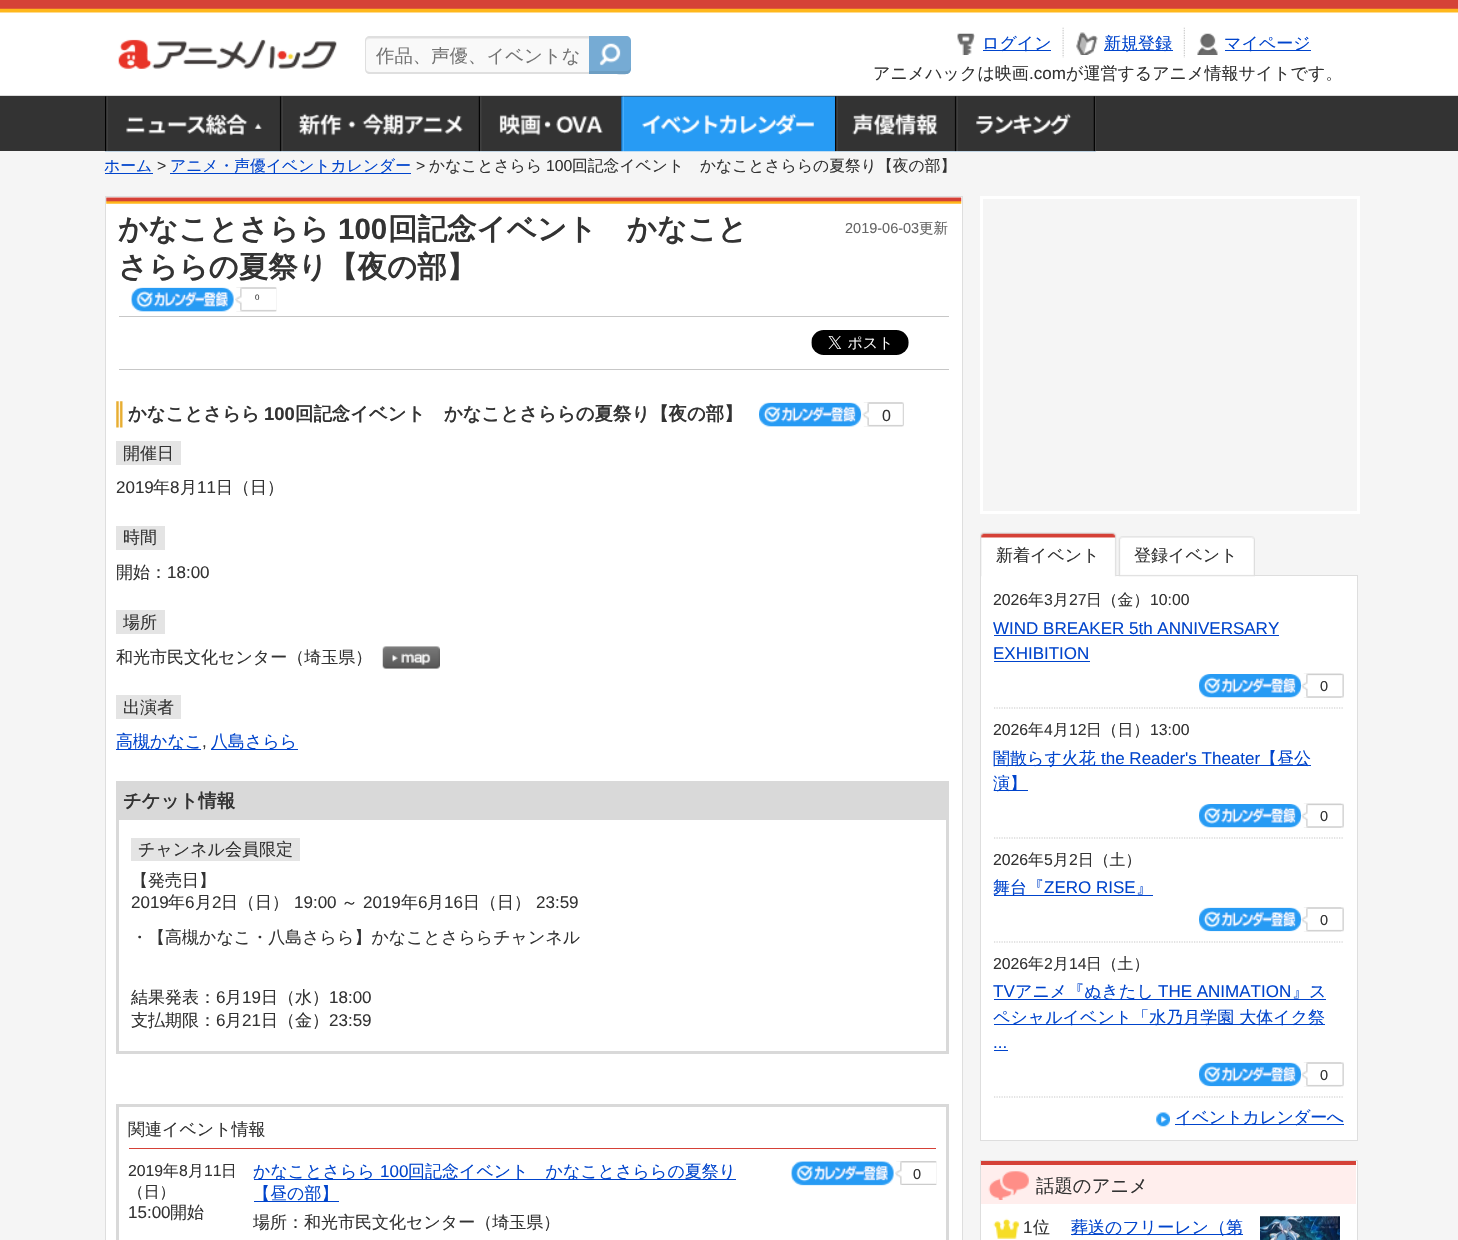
#include "include/core/SkBlurTypes.h"
#include "include/core/SkCanvas.h"
#include "include/core/SkData.h"
#include "include/core/SkFont.h"
#include "include/core/SkFontMgr.h"
#include "include/core/SkImage.h"
#include "include/core/SkMaskFilter.h"
#include "include/core/SkPaint.h"
#include "include/core/SkPathBuilder.h"
#include "include/core/SkTextBlob.h"
#include "include/effects/SkDashPathEffect.h"
#include "include/effects/SkGradientShader.h"
#include "include/utils/SkParsePath.h"

extern sk_sp<SkFontMgr> fontMgr;

void draw(SkCanvas* canvas) {
    SkPaint p;
    p.setAntiAlias(true);
    auto font = [&](const char* family, int weight, float size, bool italic = false) {
        SkFontStyle style(weight, SkFontStyle::kNormal_Width,
            italic ? SkFontStyle::kItalic_Slant : SkFontStyle::kUpright_Slant);
        SkFont result(fontMgr->matchFamilyStyle(family, style), size);
        result.setSubpixel(true);
        return result;
    };
    auto drawTracked = [&](const char* s, float x, float y, const SkFont& font, const SkPaint& ink, float letter, float word) {
        std::vector<SkGlyphID> glyphs(font.countText(s, strlen(s), SkTextEncoding::kUTF8));
        std::vector<float> xs(glyphs.size());
        font.textToGlyphs(s, strlen(s), SkTextEncoding::kUTF8, glyphs);
        font.getXPos(glyphs, xs, x);
        float extra = 0;
        for (size_t i = 0; i < glyphs.size(); i++) {
            xs[i] += extra;
            extra += letter + word * (glyphs[i] == font.unicharToGlyph(' '));
        }
        canvas->drawTextBlob(SkTextBlob::MakeFromPosHGlyphs(glyphs, xs, y, font), 0, 0, ink);
    };
    auto drawPhoto = [&](const char* path, float l, float t, float r, float b) {
        auto image = SkImages::DeferredFromEncodedData(SkData::MakeFromFileName(path));
        canvas->drawImageRect(image, SkRect::MakeLTRB(l, t, r, b), SkSamplingOptions());
    };
    canvas->clear(0xFFF5F5F5);
    p.setColor(0xFFFFFFFF);
    canvas->drawRect(SkRect::MakeLTRB(0, 12, 1458, 95), p);
    drawPhoto("media/1.png", 0, 0, 1458, 13);
    p.setColor(0xFFDBDBDB);
    canvas->drawRect(SkRect::MakeLTRB(0, 95, 1458, 96), p);
    drawPhoto("media/2.png", 118, 39, 337, 69);
    p.setColor(0xFFF9F9F9);
    canvas->drawPath(SkPathBuilder().moveTo(370, 36).lineTo(589, 36).lineTo(589, 74).lineTo(370, 74).cubicTo(367, 74, 365, 72, 365, 69).lineTo(365, 41).cubicTo(365, 38, 367, 36, 370, 36).close().detach(), p);
    p.setColor(0xFFEDECEC);
    canvas->drawPath(SkPathBuilder().moveTo(370, 39).lineTo(589, 39).lineTo(589, 38).lineTo(370, 38).cubicTo(368, 38, 366, 40, 366, 42).cubicTo(366, 40, 368, 39, 370, 39).close().detach(), p);
    p.setColor(0xFFDFDFDF);
    canvas->drawPath(SkPathBuilder(SkPathFillType::kEvenOdd).moveTo(370, 36).lineTo(589, 36).lineTo(589, 74).lineTo(370, 74).cubicTo(367, 74, 365, 72, 365, 69).lineTo(365, 41).cubicTo(365, 38, 367, 36, 370, 36).close().moveTo(370, 38).lineTo(589, 38).lineTo(589, 72).lineTo(370, 72).cubicTo(368, 72, 366, 71, 366, 69).lineTo(366, 41).cubicTo(366, 39, 368, 38, 370, 38).close().detach(), p);
    auto font1 = font("WenQuanYi Zen Hei", 500, 18.4f);
    p.setColor(0xFF757575);
    canvas->drawString("作品、声優、イベントな", 376, 62, font1, p);
    p.setColor(0xFF76ABD4);
    canvas->drawPath(SkPathBuilder().moveTo(589, 36).lineTo(626, 36).cubicTo(629, 36, 631, 38, 631, 41).lineTo(631, 69).cubicTo(631, 72, 629, 74, 626, 74).lineTo(589, 74).close().detach(), p);
    p.setColor(0xFF6D9EC3);
    canvas->drawPath(SkPathBuilder().moveTo(589, 71).lineTo(589, 74).lineTo(614, 74).cubicTo(624, 74, 631, 77, 631, 66).cubicTo(631, 69, 629, 71, 626, 71).close().detach(), p);
    drawPhoto("media/3.png", 599, 43, 621, 66);
    drawPhoto("media/4.png", 1062, 27, 1064, 58);
    drawPhoto("media/5.png", 957, 33, 975, 55);
    p.setColor(0xFF0044CC);
    canvas->drawRect(SkRect::MakeLTRB(983, 50, 1051, 51), p);
    auto font2 = font("WenQuanYi Zen Hei", 500, 17);
    canvas->drawString("ログイン", 982, 49, font2, p);
    drawPhoto("media/6.png", 1183, 27, 1185, 58);
    drawPhoto("media/7.png", 1076, 32, 1098, 55);
    canvas->drawRect(SkRect::MakeLTRB(1104, 50, 1173, 51), p);
    canvas->drawString("新規登録", 1104, 49, font2, p);
    drawPhoto("media/8.png", 1197, 33, 1218, 55);
    canvas->drawRect(SkRect::MakeLTRB(1225, 50, 1311, 51), p);
    canvas->drawString("マイページ", 1224, 49, font2, p);
    p.setColor(0xFF333333);
    canvas->drawString("アニメハックは映画", 873, 79, font2, p);
    auto font3 = font("Liberation Sans", 400, 17);
    canvas->drawString(".com", 1029, 79, font3, p);
    canvas->drawString("が運営するアニメ情報サイトです。", 1066, 79, font2, p);
    canvas->drawRect(SkRect::MakeLTRB(0, 96, 1458, 151), p);
    drawPhoto("media/9.png", 105, 96, 280, 152);
    drawPhoto("media/10.png", 280, 96, 479, 152);
    drawPhoto("media/11.png", 478, 96, 622, 152);
    drawPhoto("media/12.png", 621, 96, 835, 152);
    drawPhoto("media/13.png", 835, 96, 955, 152);
    drawPhoto("media/14.png", 955, 96, 1096, 152);
    auto font4 = font("WenQuanYi Zen Hei", 500, 15.8f);
    p.setColor(0xFF0044CC);
    canvas->drawString("ホーム", 104, 171, font4, p);
    canvas->drawRect(SkRect::MakeLTRB(105, 173, 153, 174), p);
    auto font5 = font("Liberation Sans", 400, 15.8f);
    p.setColor(0xFF333333);
    canvas->drawString(">", 157, 171, font5, p);
    p.setColor(0xFF0044CC);
    canvas->drawRect(SkRect::MakeLTRB(170, 173, 411, 174), p);
    canvas->drawString("アニメ・声優イベントカレンダー", 170, 171, font4, p);
    p.setColor(0xFF333333);
    canvas->drawString(">", 416, 171, font5, p);
    canvas->drawString("かなことさらら", 429, 171, font4, p);
    canvas->drawString("100", 546, 171, font5, p);
    canvas->drawString("回記念イベント　かなことさららの夏祭り【夜の部】", 572, 171, font4, p);
    p.setColor(0xFFFFFFFF);
    canvas->drawRect(SkRect::MakeLTRB(105.5f, 196.5f, 962.5f, 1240.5f), p);
    p.setStyle(SkPaint::kStroke_Style);
    p.setStrokeWidth(1);
    p.setColor(0xFFDEDEDE);
    canvas->drawRect(SkRect::MakeLTRB(105.5f, 196.5f, 962.5f, 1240.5f), p);
    drawPhoto("media/15.png", 106, 197, 962, 204);
    p.setStyle(SkPaint::kFill_Style);
    p.setColor(0xFFC7C7C7);
    canvas->drawRect(SkRect::MakeLTRB(119, 316, 949, 317), p);
    auto font6 = font("WenQuanYi Zen Hei", 700, 29.5f);
    p.setColor(0xFF333333);
    canvas->drawString("かなことさらら", 118, 239, font6, p);
    auto font7 = font("Liberation Sans", 700, 29.5f);
    canvas->drawString("100", 338, 239, font7, p);
    canvas->drawString("回記念イベント　かなこと", 388, 239, font6, p);
    canvas->drawString("さららの夏祭り【夜の部】", 118, 277, font6, p);
    auto font8 = font("Liberation Sans", 400, 14.5f);
    p.setColor(0xFF666666);
    canvas->drawString("2019-06-03", 845, 233, font8, p);
    auto font9 = font("WenQuanYi Zen Hei", 500, 14.5f);
    canvas->drawString("更新", 919, 233, font9, p);
    drawPhoto("media/16.png", 131, 287, 234, 312);
    drawPhoto("media/17.png", 236, 287, 277, 312);
    drawPhoto("media/18.png", 235, 287, 277, 312);
    auto font10 = font("Liberation Sans", 400, 8);
    p.setColor(0xFF333333);
    canvas->drawString("0", 255, 300, font10, p);
    p.setColor(0xFFC7C7C7);
    canvas->drawRect(SkRect::MakeLTRB(119, 369, 949, 370), p);
    drawPhoto("media/19.png", 811, 330, 909, 355);
    drawPhoto("media/20.png", 116, 401, 123, 428);
    auto font11 = font("WenQuanYi Zen Hei", 700, 18.4f);
    p.setColor(0xFF333333);
    canvas->drawString("かなことさらら", 128, 420, font11, p);
    auto font12 = font("Liberation Sans", 700, 18.4f);
    canvas->drawString("100", 264, 420, font12, p);
    canvas->drawString("回記念イベント　かなことさららの夏祭り【夜の部】", 295, 420, font11, p);
    drawPhoto("media/21.png", 759, 402, 862, 427);
    drawPhoto("media/22.png", 863, 402, 904, 427);
    drawPhoto("media/23.png", 862, 402, 903, 427);
    auto font13 = font("Liberation Sans", 400, 16);
    canvas->drawString("0", 882, 421, font13, p);
    p.setColor(0xFFE4E4E4);
    canvas->drawRect(SkRect::MakeLTRB(116, 441, 181, 465), p);
    p.setColor(0xFF333333);
    canvas->drawString("開催日", 123, 459, font2, p);
    canvas->drawString("2019", 116, 493, font3, p);
    canvas->drawString("年", 153, 493, font2, p);
    canvas->drawString("8", 170, 493, font3, p);
    canvas->drawString("月", 180, 493, font2, p);
    canvas->drawString("11", 197, 493, font3, p);
    canvas->drawString("日（日）", 216, 493, font2, p);
    p.setColor(0xFFE4E4E4);
    canvas->drawRect(SkRect::MakeLTRB(116, 526, 165, 550), p);
    p.setColor(0xFF333333);
    canvas->drawString("時間", 123, 543, font2, p);
    canvas->drawString("開始：", 116, 578, font2, p);
    canvas->drawString("18:00", 167, 578, font3, p);
    p.setColor(0xFFE4E4E4);
    canvas->drawRect(SkRect::MakeLTRB(116, 610, 165, 634), p);
    p.setColor(0xFF333333);
    canvas->drawString("場所", 123, 628, font2, p);
    canvas->drawString("和光市民文化センター（埼玉県）", 116, 663, font2, p);
    drawPhoto("media/24.png", 382, 646, 440, 669);
    p.setColor(0xFFE4E4E4);
    canvas->drawRect(SkRect::MakeLTRB(116, 695, 181, 719), p);
    p.setColor(0xFF333333);
    canvas->drawString("出演者", 123, 713, font2, p);
    p.setColor(0xFF0044CC);
    canvas->drawRect(SkRect::MakeLTRB(116, 749, 201, 750), p);
    canvas->drawString("高槻かなこ", 116, 747, font2, p);
    p.setColor(0xFF333333);
    canvas->drawString(",", 202, 747, font3, p);
    p.setColor(0xFF0044CC);
    canvas->drawRect(SkRect::MakeLTRB(211, 749, 298, 750), p);
    canvas->drawString("八島さらら", 211, 747, font2, p);
    p.setStyle(SkPaint::kStroke_Style);
    p.setStrokeWidth(3);
    p.setColor(0xFFD9D9D9);
    canvas->drawRect(SkRect::MakeLTRB(117.5f, 782.5f, 947.5f, 1052.5f), p);
    p.setStyle(SkPaint::kFill_Style);
    canvas->drawRect(SkRect::MakeLTRB(119, 784, 946, 820), p);
    p.setColor(0xFF333333);
    canvas->drawString("チケット情報", 123, 807, font11, p);
    p.setColor(0xFFE4E4E4);
    canvas->drawRect(SkRect::MakeLTRB(131, 838, 300, 861), p);
    p.setColor(0xFF333333);
    canvas->drawString("チャンネル会員限定", 138, 855, font2, p);
    canvas->drawString("【発売日】", 131, 886, font2, p);
    canvas->drawString("2019", 131, 908, font3, p);
    canvas->drawString("年", 168, 908, font2, p);
    canvas->drawString("6", 185, 908, font3, p);
    canvas->drawString("月", 195, 908, font2, p);
    canvas->drawString("2", 212, 908, font3, p);
    canvas->drawString("日（日）", 221, 908, font2, p);
    canvas->drawString("19:00", 294, 908, font3, p);
    canvas->drawString("～", 341, 908, font2, p);
    canvas->drawString("2019", 363, 908, font3, p);
    canvas->drawString("年", 401, 908, font2, p);
    canvas->drawString("6", 418, 908, font3, p);
    canvas->drawString("月", 427, 908, font2, p);
    canvas->drawString("16", 444, 908, font3, p);
    canvas->drawString("日（日）", 463, 908, font2, p);
    canvas->drawString("23:59", 536, 908, font3, p);
    canvas->drawString("・【高槻かなこ・八島さらら】かなことさららチャンネル", 131, 943, font2, p);
    canvas->drawString("結果発表：", 131, 1003, font2, p);
    canvas->drawString("6", 216, 1003, font3, p);
    canvas->drawString("月", 225, 1003, font2, p);
    canvas->drawString("19", 242, 1003, font3, p);
    canvas->drawString("日（水）", 261, 1003, font2, p);
    canvas->drawString("18:00", 329, 1003, font3, p);
    canvas->drawString("支払期限：", 131, 1026, font2, p);
    canvas->drawString("6", 216, 1026, font3, p);
    canvas->drawString("月", 225, 1026, font2, p);
    canvas->drawString("21", 242, 1026, font3, p);
    canvas->drawString("日（金）", 261, 1026, font2, p);
    canvas->drawString("23:59", 329, 1026, font3, p);
    p.setStyle(SkPaint::kStroke_Style);
    p.setColor(0xFFD9D9D9);
    canvas->drawRect(SkRect::MakeLTRB(117.5f, 1105.5f, 947.5f, 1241.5f), p);
    p.setStyle(SkPaint::kFill_Style);
    p.setColor(0xFFD54137);
    canvas->drawRect(SkRect::MakeLTRB(129, 1148, 936, 1149), p);
    p.setColor(0xFF333333);
    canvas->drawString("関連イベント情報", 128, 1135, font2, p);
    canvas->drawString("2019", 128, 1176, font5, p);
    canvas->drawString("年", 163, 1176, font4, p);
    canvas->drawString("8", 179, 1176, font5, p);
    canvas->drawString("月", 188, 1176, font4, p);
    canvas->drawString("11", 204, 1176, font5, p);
    canvas->drawString("日", 221, 1176, font4, p);
    canvas->drawString("（日）", 128, 1197, font4, p);
    canvas->drawString("15:00", 128, 1218, font3, p);
    canvas->drawString("開始", 170, 1218, font2, p);
    p.setColor(0xFF0044CC);
    canvas->drawRect(SkRect::MakeLTRB(254, 1179, 736, 1180), p);
    canvas->drawString("かなことさらら", 253, 1177, font2, p);
    canvas->drawString("100", 380, 1177, font3, p);
    canvas->drawString("回記念イベント　かなことさららの夏祭り", 408, 1177, font2, p);
    canvas->drawRect(SkRect::MakeLTRB(254, 1201, 339, 1202), p);
    canvas->drawString("【昼の部】", 253, 1199, font2, p);
    drawPhoto("media/25.png", 791, 1161, 894, 1186);
    drawPhoto("media/26.png", 896, 1161, 937, 1185);
    drawPhoto("media/27.png", 895, 1161, 937, 1185);
    p.setColor(0xFF333333);
    canvas->drawString("0", 913, 1179, font8, p);
    canvas->drawString("場所：和光市民文化センター（埼玉県）", 253, 1228, font2, p);
    p.setStyle(SkPaint::kStroke_Style);
    p.setColor(0xFFFFFFFF);
    canvas->drawRect(SkRect::MakeLTRB(981.5f, 197.5f, 1358.5f, 512.5f), p);
    p.setStyle(SkPaint::kFill_Style);
    canvas->drawRect(SkRect::MakeLTRB(980.5f, 575.5f, 1357.5f, 1140.5f), p);
    p.setStyle(SkPaint::kStroke_Style);
    p.setStrokeWidth(1);
    p.setColor(0xFFDEDEDE);
    canvas->drawRect(SkRect::MakeLTRB(980.5f, 575.5f, 1357.5f, 1140.5f), p);
    drawPhoto("media/28.png", 980, 532, 1117, 577);
    p.setStyle(SkPaint::kFill_Style);
    p.setColor(0xFF333333);
    canvas->drawString("新着イベント", 996, 561, font2, p);
    drawPhoto("media/29.png", 1118, 536, 1255, 577);
    canvas->drawString("登録イベント", 1134, 561, font2, p);
    p.setStyle(SkPaint::kStroke_Style);
    p.setStrokeWidth(1.2f);
    p.setColor(0xFFC7C7C7);
    p.setPathEffect(SkDashPathEffect::Make({{1.25f, 1.25f}}, 0));
    canvas->drawPath(SkPathBuilder().moveTo(994, 708).lineTo(1344, 708).detach(), p);
    p.setPathEffect(nullptr);
    p.setStyle(SkPaint::kFill_Style);
    p.setColor(0xFF333333);
    canvas->drawString("2026", 993, 605, font5, p);
    canvas->drawString("年", 1028, 605, font4, p);
    canvas->drawString("3", 1044, 605, font5, p);
    canvas->drawString("月", 1053, 605, font4, p);
    canvas->drawString("27", 1069, 605, font5, p);
    canvas->drawString("日（金）", 1086, 605, font4, p);
    canvas->drawString("10:00", 1150, 605, font5, p);
    p.setColor(0xFF0044CC);
    canvas->drawString("WIND BREAKER 5th ANNIVERSARY", 993, 634, font3, p);
    canvas->drawRect(SkRect::MakeLTRB(994, 635, 1279, 636), p);
    canvas->drawString("EXHIBITION", 993, 659, font3, p);
    canvas->drawRect(SkRect::MakeLTRB(994, 661, 1090, 662), p);
    drawPhoto("media/30.png", 1199, 674, 1301, 698);
    drawPhoto("media/31.png", 1303, 673, 1344, 698);
    drawPhoto("media/32.png", 1301, 673, 1341, 698);
    p.setColor(0xFF333333);
    canvas->drawString("0", 1320, 691, font8, p);
    p.setStyle(SkPaint::kStroke_Style);
    p.setColor(0xFFC7C7C7);
    p.setPathEffect(SkDashPathEffect::Make({{1.25f, 1.25f}}, 0));
    canvas->drawPath(SkPathBuilder().moveTo(994, 838).lineTo(1344, 838).detach(), p);
    p.setPathEffect(nullptr);
    p.setStyle(SkPaint::kFill_Style);
    p.setColor(0xFF333333);
    canvas->drawString("2026", 993, 735, font5, p);
    canvas->drawString("年", 1028, 735, font4, p);
    canvas->drawString("4", 1044, 735, font5, p);
    canvas->drawString("月", 1053, 735, font4, p);
    canvas->drawString("12", 1069, 735, font5, p);
    canvas->drawString("日（日）", 1086, 735, font4, p);
    canvas->drawString("13:00", 1150, 735, font5, p);
    p.setColor(0xFF0044CC);
    canvas->drawRect(SkRect::MakeLTRB(994, 765, 1311, 766), p);
    canvas->drawString("闇散らす火花", 993, 764, font2, p);
    canvas->drawString("the Reader's Theater", 1101, 764, font3, p);
    canvas->drawString("【昼公", 1260, 764, font2, p);
    canvas->drawRect(SkRect::MakeLTRB(994, 790, 1028, 791), p);
    canvas->drawString("演】", 993, 789, font2, p);
    drawPhoto("media/30.png", 1199, 804, 1301, 828);
    drawPhoto("media/31.png", 1303, 803, 1344, 828);
    drawPhoto("media/32.png", 1301, 803, 1341, 828);
    p.setColor(0xFF333333);
    canvas->drawString("0", 1320, 821, font8, p);
    p.setStyle(SkPaint::kStroke_Style);
    p.setColor(0xFFC7C7C7);
    p.setPathEffect(SkDashPathEffect::Make({{1.25f, 1.25f}}, 0));
    canvas->drawPath(SkPathBuilder().moveTo(994, 942).lineTo(1344, 942).detach(), p);
    p.setPathEffect(nullptr);
    p.setStyle(SkPaint::kFill_Style);
    p.setColor(0xFF333333);
    canvas->drawString("2026", 993, 865, font5, p);
    canvas->drawString("年", 1028, 865, font4, p);
    canvas->drawString("5", 1044, 865, font5, p);
    canvas->drawString("月", 1053, 865, font4, p);
    canvas->drawString("2", 1069, 865, font5, p);
    canvas->drawString("日（土）", 1078, 865, font4, p);
    p.setColor(0xFF0044CC);
    canvas->drawRect(SkRect::MakeLTRB(994, 895, 1153, 896), p);
    canvas->drawString("舞台『", 993, 893, font2, p);
    canvas->drawString("ZERO RISE", 1044, 893, font3, p);
    canvas->drawString("』", 1136, 893, font2, p);
    drawPhoto("media/33.png", 1199, 907, 1301, 932);
    drawPhoto("media/34.png", 1303, 907, 1344, 932);
    drawPhoto("media/35.png", 1301, 907, 1341, 932);
    p.setColor(0xFF333333);
    canvas->drawString("0", 1320, 925, font8, p);
    p.setStyle(SkPaint::kStroke_Style);
    p.setColor(0xFFC7C7C7);
    p.setPathEffect(SkDashPathEffect::Make({{1.25f, 1.25f}}, 0));
    canvas->drawPath(SkPathBuilder().moveTo(994, 1097).lineTo(1344, 1097).detach(), p);
    p.setPathEffect(nullptr);
    p.setStyle(SkPaint::kFill_Style);
    p.setColor(0xFF333333);
    canvas->drawString("2026", 993, 969, font5, p);
    canvas->drawString("年", 1028, 969, font4, p);
    canvas->drawString("2", 1044, 969, font5, p);
    canvas->drawString("月", 1053, 969, font4, p);
    canvas->drawString("14", 1069, 969, font5, p);
    canvas->drawString("日（土）", 1086, 969, font4, p);
    p.setColor(0xFF0044CC);
    canvas->drawString("TV", 993, 997, font3, p);
    canvas->drawRect(SkRect::MakeLTRB(994, 999, 1326, 1000), p);
    canvas->drawString("アニメ『ぬきたし", 1015, 997, font2, p);
    canvas->drawString("THE ANIMATION", 1158, 997, font3, p);
    canvas->drawString("』ス", 1292, 997, font2, p);
    canvas->drawRect(SkRect::MakeLTRB(994, 1024, 1325, 1025), p);
    canvas->drawString("ペシャルイベント「水乃月学園 大体イク祭", 993, 1023, font2, p);
    canvas->drawString("...", 993, 1048, font3, p);
    canvas->drawRect(SkRect::MakeLTRB(994, 1050, 1008, 1051), p);
    drawPhoto("media/33.png", 1199, 1062, 1301, 1087);
    drawPhoto("media/34.png", 1303, 1062, 1344, 1087);
    drawPhoto("media/35.png", 1301, 1062, 1341, 1087);
    p.setColor(0xFF333333);
    canvas->drawString("0", 1320, 1080, font8, p);
    drawPhoto("media/36.png", 1156, 1112, 1170, 1127);
    p.setColor(0xFF0044CC);
    canvas->drawRect(SkRect::MakeLTRB(1175, 1124, 1344, 1125), p);
    drawTracked("イベントカレンダーへ", 1175, 1123, font2, p, -0.5f, 0);
    p.setColor(0xFFFFFFFF);
    canvas->drawRect(SkRect::MakeLTRB(980.5f, 1160.5f, 1357.5f, 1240.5f), p);
    p.setStyle(SkPaint::kStroke_Style);
    p.setStrokeWidth(1);
    p.setColor(0xFFDEDEDE);
    canvas->drawRect(SkRect::MakeLTRB(980.5f, 1160.5f, 1357.5f, 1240.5f), p);
    p.setStyle(SkPaint::kFill_Style);
    p.setColor(0xFFFFEEED);
    canvas->drawRect(SkRect::MakeLTRB(981, 1165, 1356, 1204), p);
    p.setColor(0xFFD54137);
    canvas->drawRect(SkRect::MakeLTRB(981, 1161, 1356, 1165), p);
    drawPhoto("media/37.png", 988, 1171, 1029, 1200);
    p.setColor(0xFF333333);
    canvas->drawString("話題のアニメ", 1036, 1192, font1, p);
    drawPhoto("media/38.png", 993, 1218, 1020, 1239);
    canvas->drawString("1", 1023, 1233, font3, p);
    canvas->drawString("位", 1033, 1233, font2, p);
    p.setColor(0xFF0044CC);
    canvas->drawRect(SkRect::MakeLTRB(1071, 1234, 1243, 1235), p);
    canvas->drawString("葬送のフリーレン（第", 1071, 1233, font2, p);
    drawPhoto("media/39.png", 1260, 1216, 1340, 1240);
}
